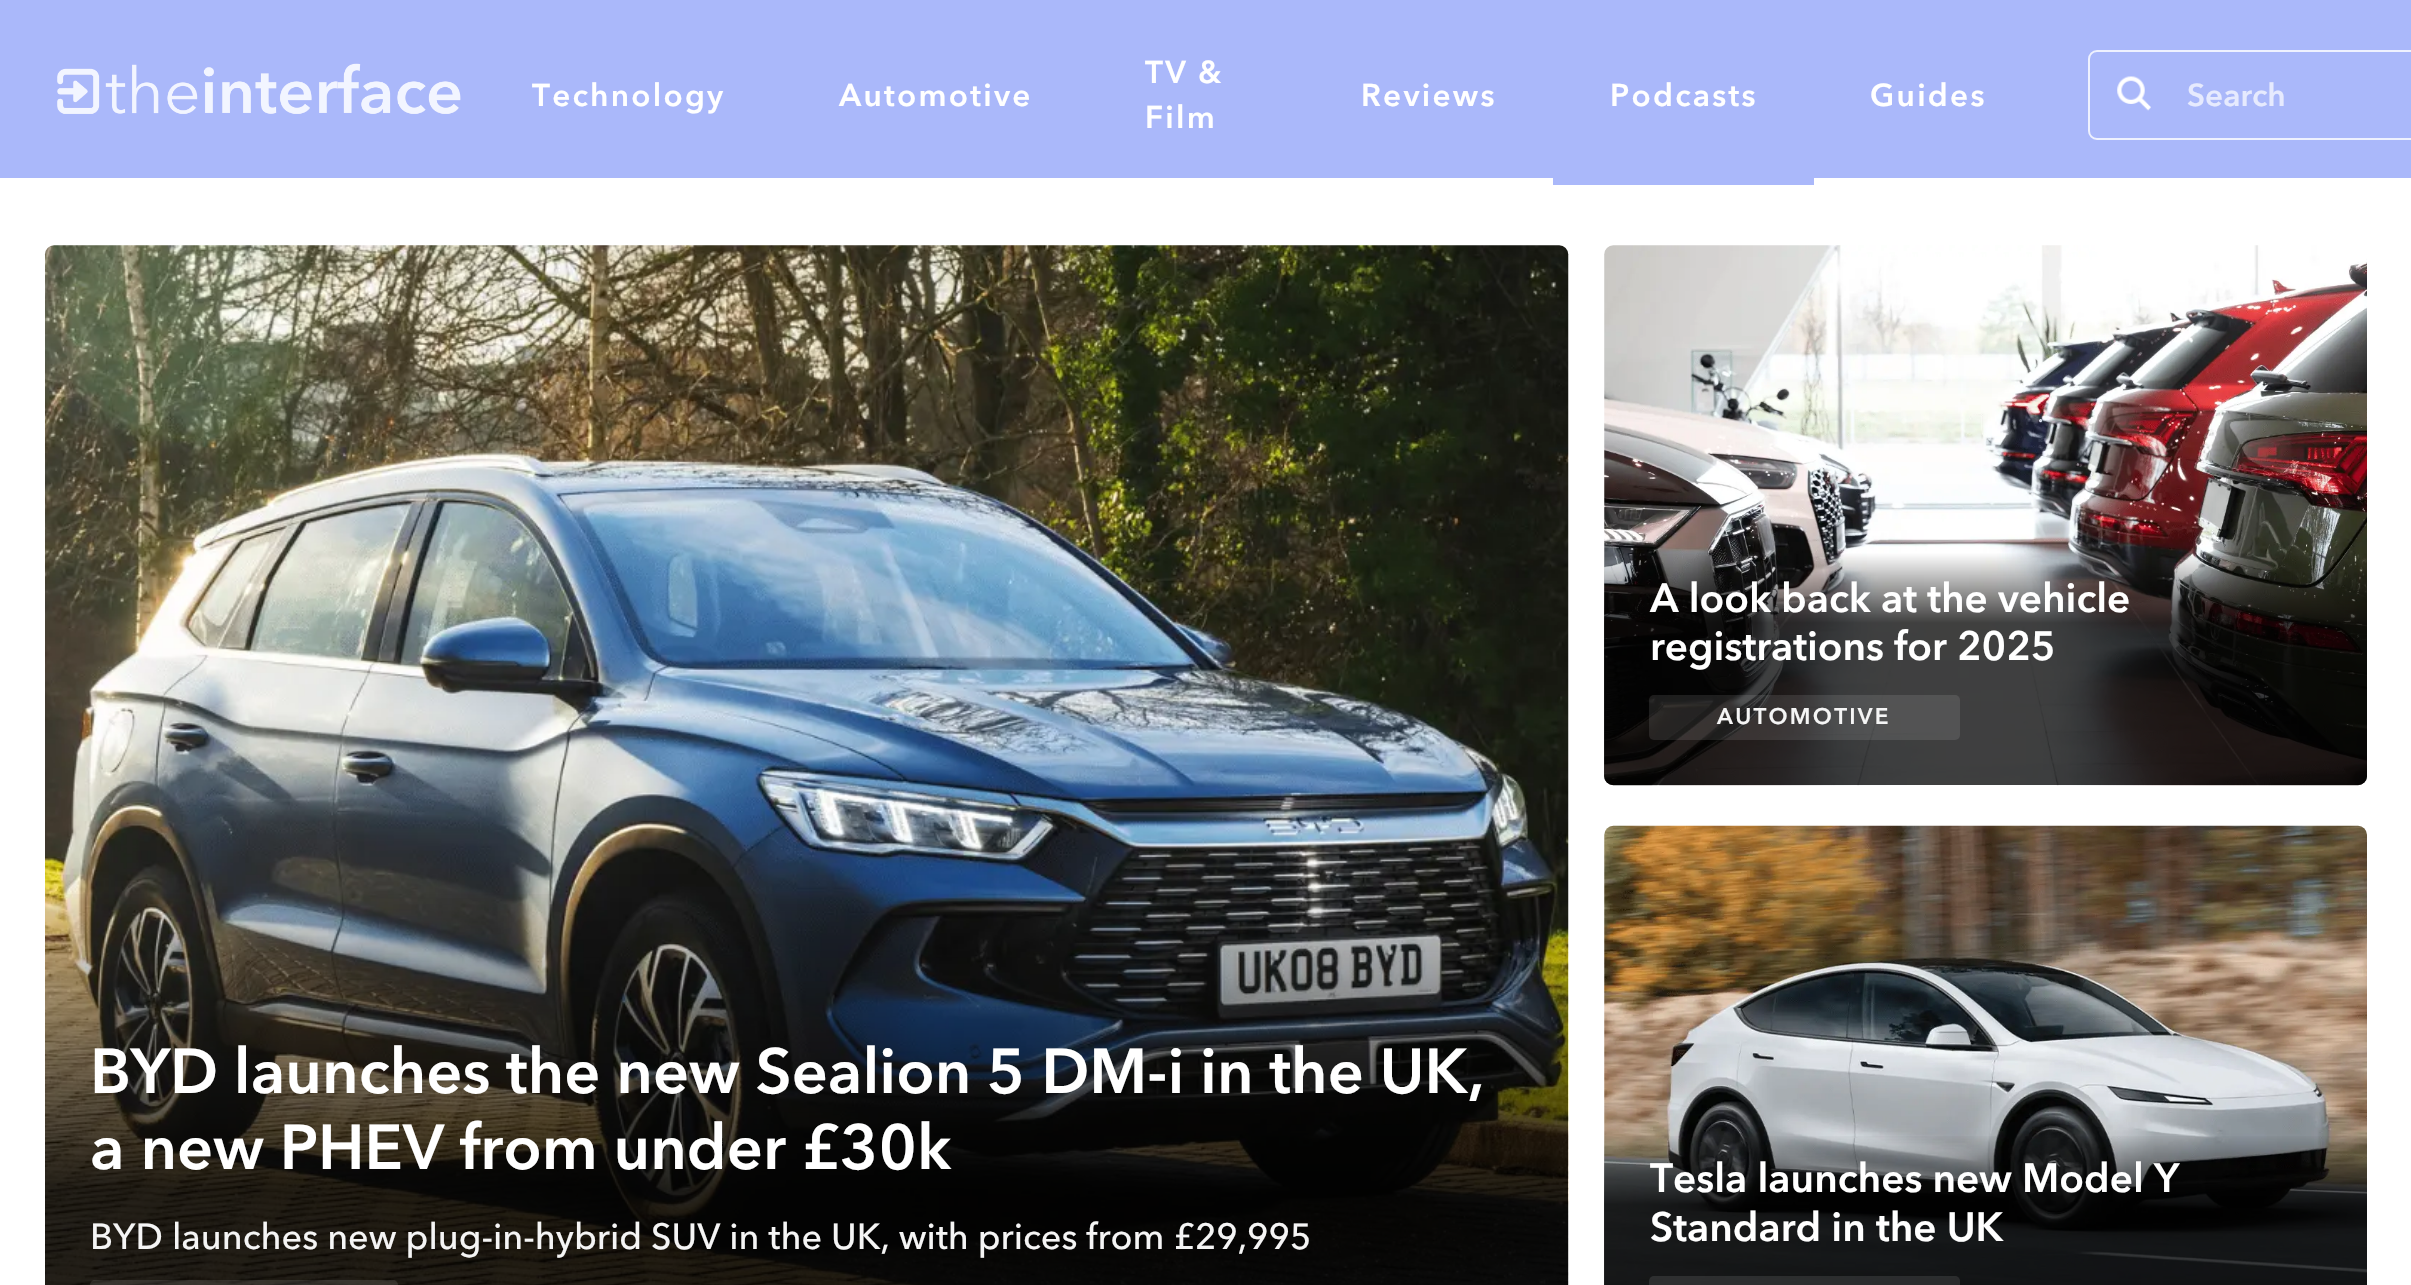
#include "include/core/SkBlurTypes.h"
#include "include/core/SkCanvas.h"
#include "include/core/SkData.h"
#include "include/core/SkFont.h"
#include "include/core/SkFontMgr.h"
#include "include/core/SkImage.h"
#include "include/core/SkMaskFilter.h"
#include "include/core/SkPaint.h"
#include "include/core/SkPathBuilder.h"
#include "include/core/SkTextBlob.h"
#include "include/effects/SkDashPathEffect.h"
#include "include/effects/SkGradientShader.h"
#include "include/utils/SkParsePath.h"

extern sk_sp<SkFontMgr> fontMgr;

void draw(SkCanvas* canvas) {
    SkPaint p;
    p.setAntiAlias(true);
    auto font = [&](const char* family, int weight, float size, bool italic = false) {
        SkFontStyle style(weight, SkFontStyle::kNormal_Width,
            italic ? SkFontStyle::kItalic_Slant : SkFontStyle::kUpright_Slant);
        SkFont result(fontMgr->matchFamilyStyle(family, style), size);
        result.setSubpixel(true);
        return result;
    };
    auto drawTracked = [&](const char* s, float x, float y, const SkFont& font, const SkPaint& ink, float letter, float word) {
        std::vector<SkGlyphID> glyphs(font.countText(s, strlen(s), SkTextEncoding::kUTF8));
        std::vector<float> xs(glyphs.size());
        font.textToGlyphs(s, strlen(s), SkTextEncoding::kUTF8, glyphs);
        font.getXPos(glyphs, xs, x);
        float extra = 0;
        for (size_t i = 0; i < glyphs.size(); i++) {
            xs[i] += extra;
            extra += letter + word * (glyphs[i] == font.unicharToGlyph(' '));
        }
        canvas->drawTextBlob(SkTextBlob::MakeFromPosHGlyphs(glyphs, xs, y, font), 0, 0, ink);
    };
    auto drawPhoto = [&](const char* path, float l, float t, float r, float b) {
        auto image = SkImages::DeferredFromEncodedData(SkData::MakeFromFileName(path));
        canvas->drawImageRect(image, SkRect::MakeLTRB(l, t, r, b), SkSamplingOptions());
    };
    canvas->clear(0xFFFFFFFF);
    p.setColor(0xFFAAB8FA);
    canvas->drawRect(SkRect::MakeLTRB(0, 0, 2411, 178), p);
    drawPhoto("media/1.png", 57, 63, 461, 114);
    auto font1 = font("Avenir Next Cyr", 700, 31.5f);
    p.setColor(0xFFFFFFFF);
    {
        const struct { const char* s; float x, y; } items[] = {
            {"Technology", 532, 106},
            {"Automotive", 839, 106},
            {"TV &", 1145, 83},
            {"Film", 1145, 128},
            {"Reviews", 1361, 106},
            {"Podcasts", 1610, 106},
        };
        for (auto [s, x, y] : items) {
            drawTracked(s, x, y, font1, p, 2.25f, 0);
        }
    }
    p.setColor(0xFFAAB8FA);
    canvas->drawRect(SkRect::MakeLTRB(1553, 178, 1814, 185), p);
    p.setColor(0xFFFFFFFF);
    drawTracked("Guides", 1870, 106, font1, p, 2.25f, 0);
    p.setStyle(SkPaint::kStroke_Style);
    p.setStrokeWidth(2);
    p.setColor(0xFFEEF1FE);
    canvas->drawRoundRect(SkRect::MakeLTRB(2089, 51, 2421, 139), 8, 8, p);
    drawPhoto("media/2.png", 2117, 76, 2151, 111);
    p.setStyle(SkPaint::kFill_Style);
    p.setColor(0xFFE6EAFE);
    canvas->drawString("Search", 2187, 106, font1, p);
    drawPhoto("media/3.png", 44, 245, 1569, 1285);
    {
        const SkColor colors[] = {0x00000000, 0xD9000000};
        const float stops[] = {0.57f, 0.84f};
        const SkPoint ends[] = {{807, 245}, {807, 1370}};
        p.setShader(SkGradientShader::MakeLinear(ends, colors, stops, 2, SkTileMode::kClamp));
        p.setAlpha(255);
    }
    canvas->drawRect(SkRect::MakeLTRB(45, 894, 1568, 1285), p);
    auto font2 = font("Avenir Next Cyr", 700, 63);
    p.setShader(nullptr);
    p.setColor(0xFFFFFFFF);
    canvas->drawString("BYD launches the new Sealion 5 DM-i in the UK,", 90, 1093, font2, p);
    canvas->drawString("a new PHEV from under £30k", 90, 1169, font2, p);
    auto font3 = font("Avenir Next Cyr", 500, 36);
    p.setColor(0xFFF5F5F5);
    canvas->drawString("BYD launches new plug-in-hybrid SUV in the UK, with prices from £29,995", 90, 1249, font3, p);
    p.setColor(0x1AFFFFFF);
    canvas->drawRoundRect(SkRect::MakeLTRB(90, 1280, 398, 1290), 5, 5, p);
    drawPhoto("media/4.png", 1604, 245, 2367, 786);
    {
        const SkColor colors[] = {0x00000000, 0xBF000000};
        const float stops[] = {0.57f, 0.7f};
        const SkPoint ends[] = {{1986, 245}, {1986, 785}};
        p.setShader(SkGradientShader::MakeLinear(ends, colors, stops, 2, SkTileMode::kClamp));
        p.setAlpha(255);
    }
    canvas->drawRoundRect(SkRect::MakeLTRB(1604, 245, 2367, 785), 9, 9, p);
    auto font4 = font("Avenir Next Cyr", 700, 40.5f);
    p.setShader(nullptr);
    p.setColor(0xFFFFFFFF);
    canvas->drawString("A look back at the vehicle", 1650, 612, font4, p);
    canvas->drawString("registrations for 2025", 1650, 660, font4, p);
    p.setColor(0x1AFFFFFF);
    canvas->drawRoundRect(SkRect::MakeLTRB(1649, 695, 1960, 740), 5, 5, p);
    auto font5 = font("Avenir Next Cyr", 700, 22.5f);
    p.setColor(0xFFF5F5F5);
    drawTracked("AUTOMOTIVE", 1717, 724, font5, p, 2.25f, 0);
    drawPhoto("media/5.png", 1604, 825, 2367, 1285);
    {
        const SkColor colors[] = {0x00000000, 0xBF000000};
        const float stops[] = {0.57f, 0.7f};
        const SkPoint ends[] = {{1986, 826}, {1986, 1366}};
        p.setShader(SkGradientShader::MakeLinear(ends, colors, stops, 2, SkTileMode::kClamp));
        p.setAlpha(255);
    }
    canvas->drawRect(SkRect::MakeLTRB(1604, 1136, 2367, 1285), p);
    p.setShader(nullptr);
    p.setColor(0xFFFFFFFF);
    canvas->drawString("Tesla launches new Model Y", 1650, 1192, font4, p);
    canvas->drawString("Standard in the UK", 1650, 1241, font4, p);
    p.setColor(0x1AFFFFFF);
    canvas->drawRoundRect(SkRect::MakeLTRB(1649, 1276, 1960, 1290), 5, 5, p);
}
